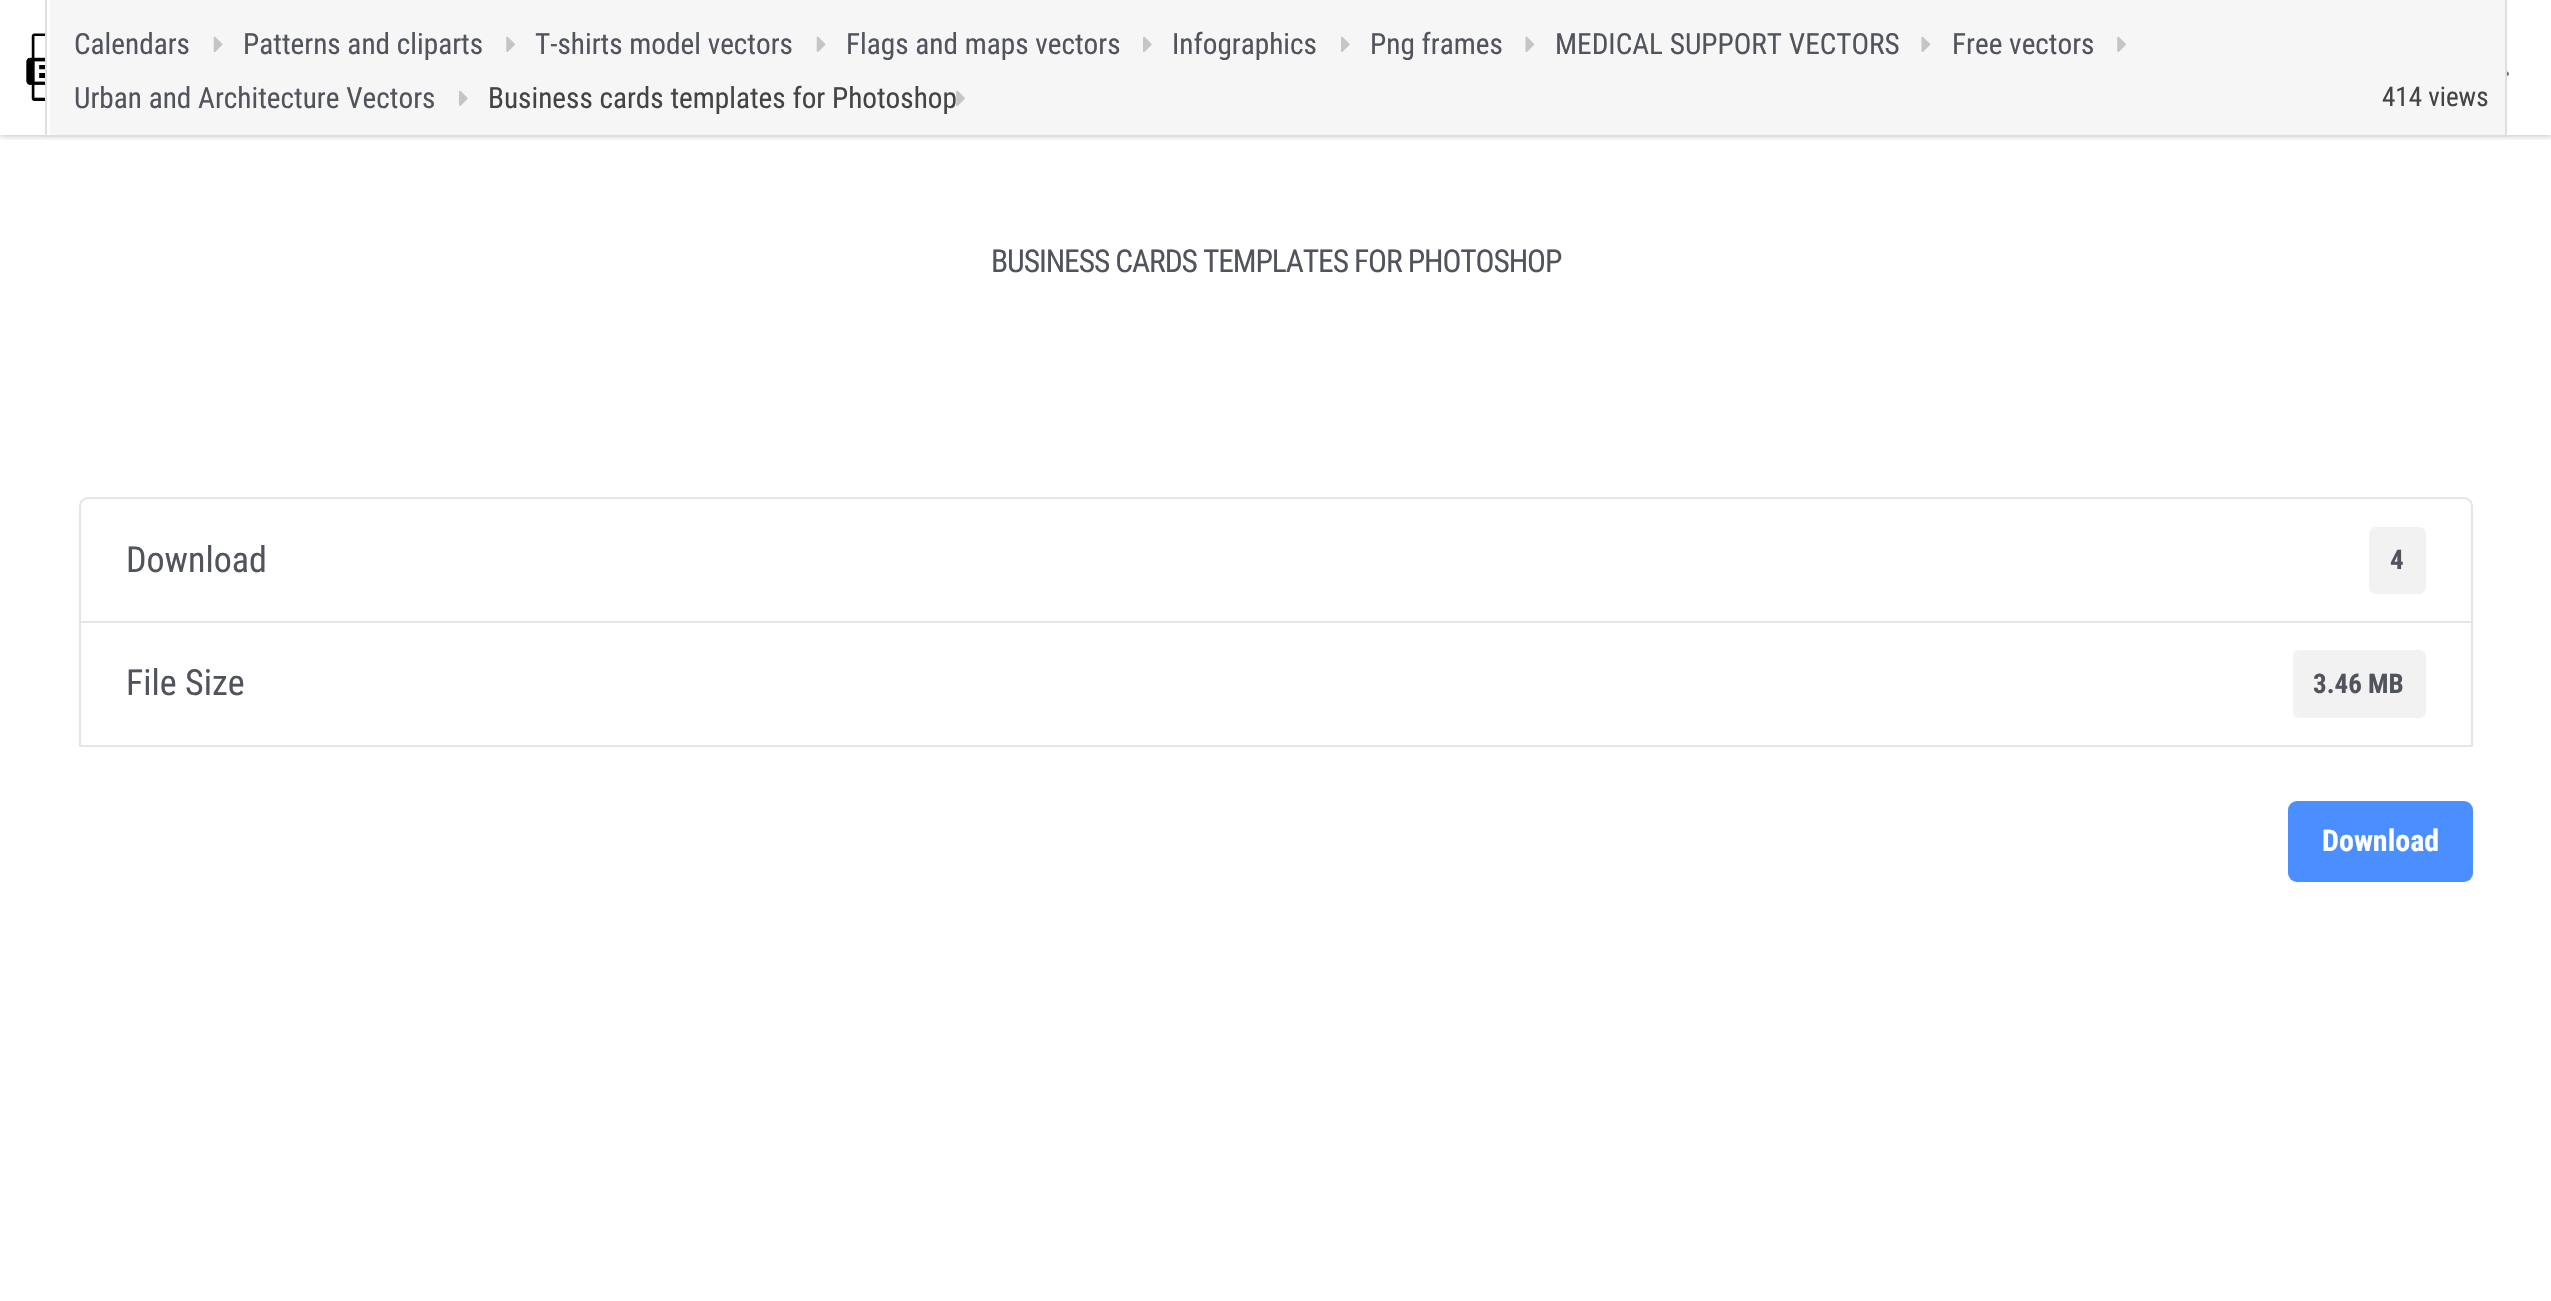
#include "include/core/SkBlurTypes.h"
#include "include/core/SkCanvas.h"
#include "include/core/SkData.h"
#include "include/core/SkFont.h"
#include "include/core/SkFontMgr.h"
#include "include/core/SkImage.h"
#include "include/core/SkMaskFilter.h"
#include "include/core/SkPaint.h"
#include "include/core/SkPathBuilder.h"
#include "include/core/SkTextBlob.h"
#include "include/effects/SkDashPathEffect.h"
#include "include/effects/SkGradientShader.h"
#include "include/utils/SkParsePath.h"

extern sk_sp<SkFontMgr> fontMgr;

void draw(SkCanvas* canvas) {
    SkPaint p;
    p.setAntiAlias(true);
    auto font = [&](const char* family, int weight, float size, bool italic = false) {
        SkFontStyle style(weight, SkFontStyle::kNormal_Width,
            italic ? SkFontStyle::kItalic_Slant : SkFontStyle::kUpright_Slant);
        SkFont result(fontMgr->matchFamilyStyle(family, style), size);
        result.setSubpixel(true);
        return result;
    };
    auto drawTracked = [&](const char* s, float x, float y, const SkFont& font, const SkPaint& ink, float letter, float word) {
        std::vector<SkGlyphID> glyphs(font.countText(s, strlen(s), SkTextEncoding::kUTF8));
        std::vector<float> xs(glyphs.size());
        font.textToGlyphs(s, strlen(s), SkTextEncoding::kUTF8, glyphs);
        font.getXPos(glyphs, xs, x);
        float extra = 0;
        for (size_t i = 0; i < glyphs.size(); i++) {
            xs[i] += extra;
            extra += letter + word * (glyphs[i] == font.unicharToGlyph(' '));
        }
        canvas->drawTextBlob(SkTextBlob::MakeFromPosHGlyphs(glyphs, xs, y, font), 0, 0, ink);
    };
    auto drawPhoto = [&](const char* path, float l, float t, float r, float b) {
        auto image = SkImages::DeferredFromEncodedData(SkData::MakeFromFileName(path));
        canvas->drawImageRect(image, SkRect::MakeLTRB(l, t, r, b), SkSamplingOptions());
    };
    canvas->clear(0xFFFFFFFF);
    canvas->save();
    canvas->clipRect(SkRect::MakeLTRB(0, 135, 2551, 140));
    p.setColor(0x4D000000);
    p.setMaskFilter(SkMaskFilter::MakeBlur(kNormal_SkBlurStyle, 3.5f));
    canvas->drawRect(SkRect::MakeLTRB(0, 0, 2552, 135), p);
    p.setMaskFilter(nullptr);
    canvas->restore();
    drawPhoto("media/1.png", 26, 33, 45, 101);
    drawPhoto("media/2.png", 2507, 71, 2509, 76);
    p.setColor(0xFFF6F6F6);
    canvas->drawRect(SkRect::MakeLTRB(50, 0, 2505, 135), p);
    p.setStyle(SkPaint::kStroke_Style);
    p.setStrokeWidth(2);
    p.setColor(0xFFE0DDDD);
    canvas->drawRect(SkRect::MakeLTRB(46, -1, 2506, 136), p);
    auto font1 = font("Roboto Condensed", 400, 29.25f);
    p.setStyle(SkPaint::kFill_Style);
    p.setColor(0xFF51545C);
    canvas->drawString("Calendars", 74, 54, font1, p);
    drawPhoto("media/3.png", 213, 36, 223, 52);
    canvas->drawString("Patterns and cliparts", 243, 54, font1, p);
    drawPhoto("media/4.png", 506, 36, 515, 52);
    canvas->drawString("T-shirts model vectors", 535, 54, font1, p);
    drawPhoto("media/3.png", 816, 36, 826, 52);
    canvas->drawString("Flags and maps vectors", 846, 54, font1, p);
    drawPhoto("media/5.png", 1143, 36, 1152, 52);
    canvas->drawString("Infographics", 1172, 54, font1, p);
    drawPhoto("media/5.png", 1341, 36, 1350, 52);
    canvas->drawString("Png frames", 1370, 54, font1, p);
    drawPhoto("media/6.png", 1525, 36, 1535, 52);
    canvas->drawString("MEDICAL SUPPORT VECTORS", 1555, 54, font1, p);
    drawPhoto("media/6.png", 1921, 36, 1931, 52);
    canvas->drawString("Free vectors", 1952, 54, font1, p);
    drawPhoto("media/4.png", 2117, 36, 2126, 52);
    canvas->drawString("Urban and Architecture Vectors", 74, 108, font1, p);
    drawPhoto("media/5.png", 459, 90, 468, 106);
    p.setColor(0xFF444444);
    canvas->drawString("Business cards templates for Photoshop", 488, 108, font1, p);
    drawPhoto("media/4.png", 956, 90, 965, 106);
    auto font2 = font("Roboto Condensed", 400, 27);
    canvas->drawString("414 views", 2382, 106, font2, p);
    auto font3 = font("Roboto Condensed", 400, 31.5f);
    p.setColor(0xFF51545C);
    drawTracked("BUSINESS CARDS TEMPLATES FOR PHOTOSHOP", 991, 272, font3, p, -1.1f, 0);
    p.setStyle(SkPaint::kStroke_Style);
    p.setColor(0xFFE5E5E5);
    canvas->drawPath(SkPathBuilder().moveTo(88, 498).lineTo(2464, 498).cubicTo(2468.5f, 498, 2472, 501.5f, 2472, 506).lineTo(2472, 622).lineTo(80, 622).lineTo(80, 506).cubicTo(80, 501.5f, 83.5f, 498, 88, 498).close().detach(), p);
    auto font4 = font("Roboto Condensed", 400, 36);
    p.setStyle(SkPaint::kFill_Style);
    p.setColor(0xFF51545C);
    canvas->drawString("Download", 126, 572, font4, p);
    p.setColor(0xFFF2F2F2);
    canvas->drawRoundRect(SkRect::MakeLTRB(2369, 527, 2426, 594), 7, 7, p);
    auto font5 = font("Roboto Condensed", 700, 27);
    p.setColor(0xFF51545C);
    canvas->drawString("4", 2390, 569, font5, p);
    p.setStyle(SkPaint::kStroke_Style);
    p.setColor(0xFFE5E5E5);
    canvas->drawRect(SkRect::MakeLTRB(80, 622, 2472, 746), p);
    p.setStyle(SkPaint::kFill_Style);
    p.setColor(0xFF51545C);
    canvas->drawString("File Size", 126, 695, font4, p);
    p.setColor(0xFFF2F2F2);
    canvas->drawRoundRect(SkRect::MakeLTRB(2293, 650, 2426, 718), 7, 7, p);
    p.setColor(0xFF51545C);
    canvas->drawString("3.46 MB", 2313, 693, font5, p);
    p.setColor(0xFF4A8EFF);
    canvas->drawRoundRect(SkRect::MakeLTRB(2288, 801, 2473, 882), 9, 9, p);
    auto font6 = font("Roboto Condensed", 700, 30);
    p.setColor(0xFFFFFFFF);
    canvas->drawString("Download", 2322, 851, font6, p);
}
